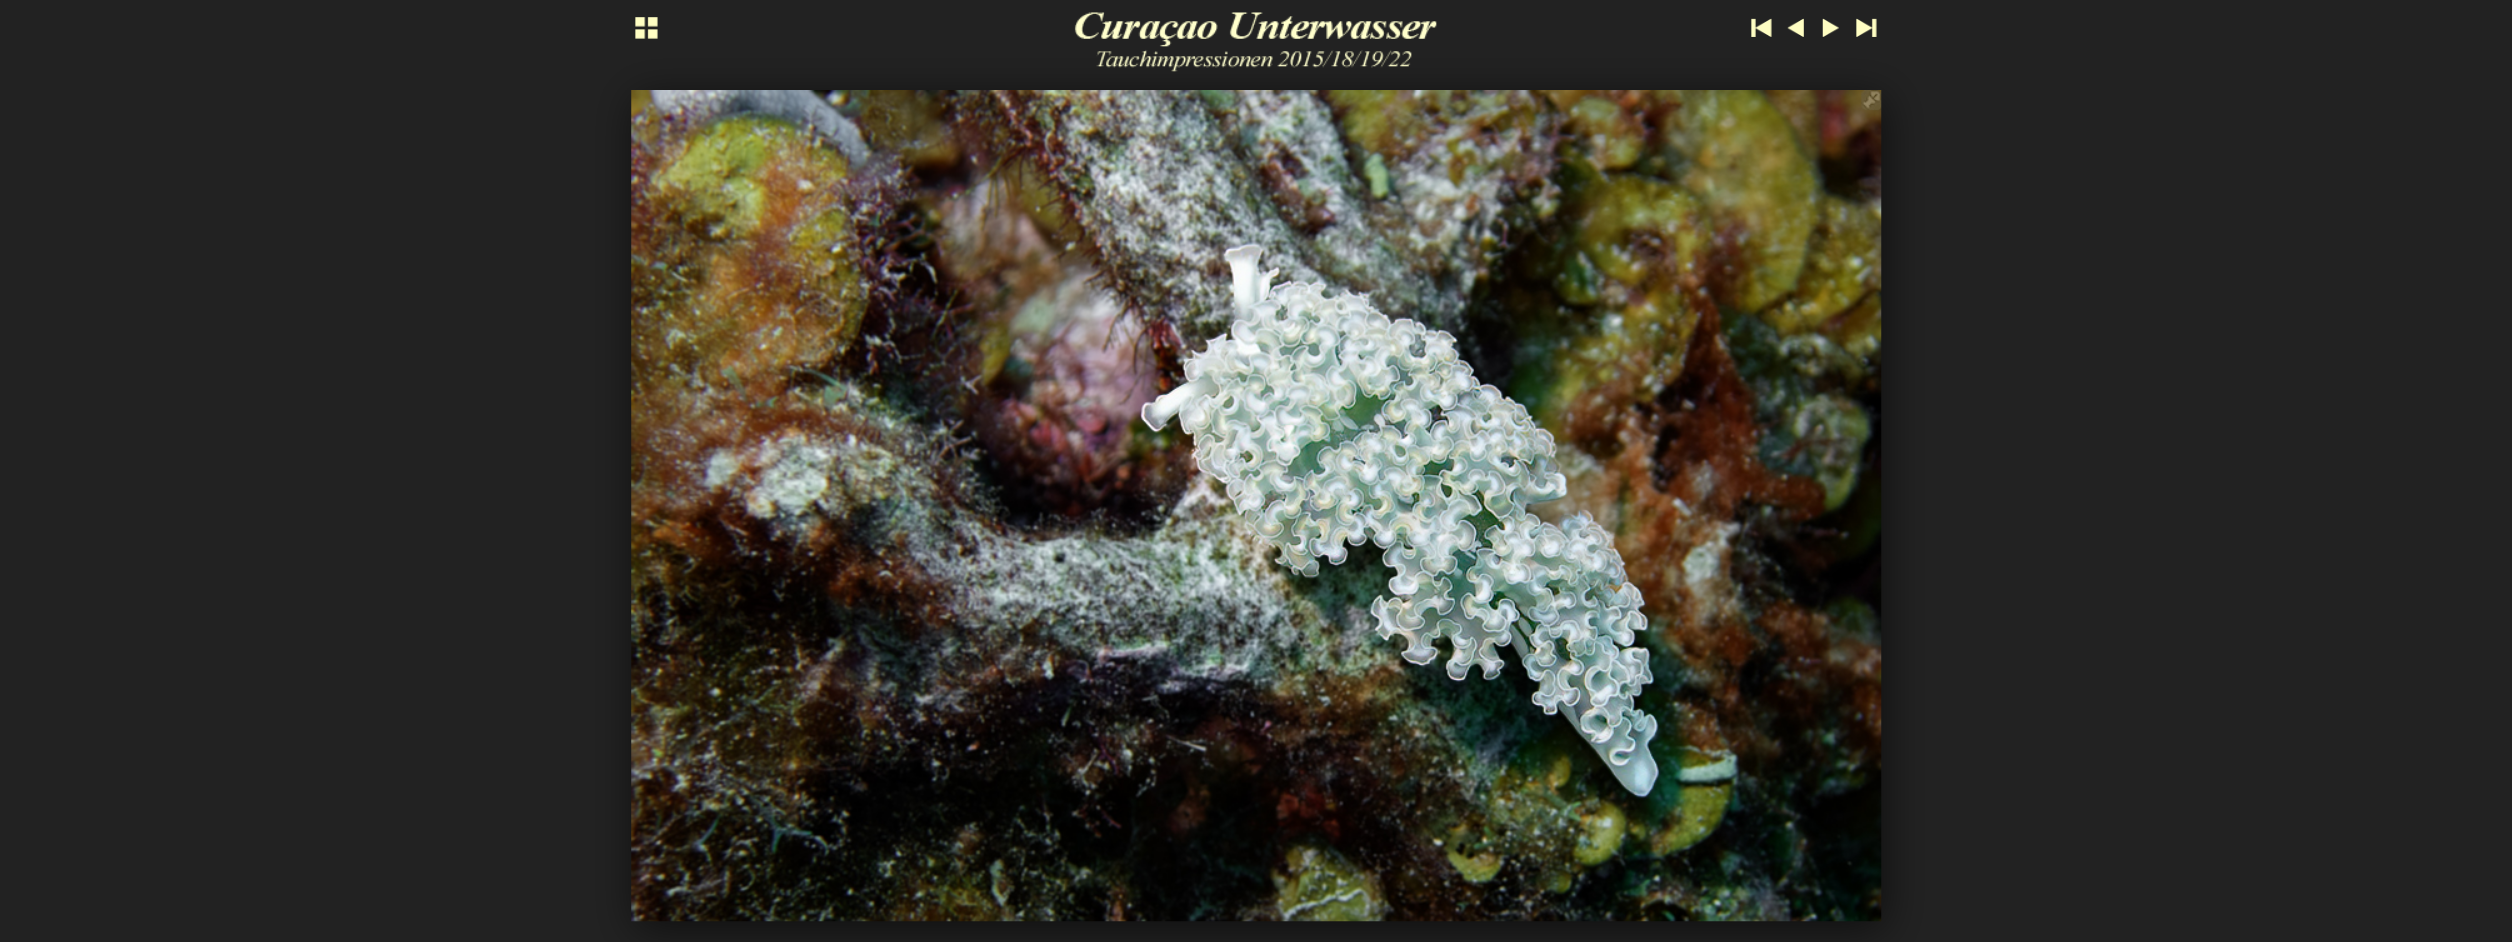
#include "include/core/SkBlurTypes.h"
#include "include/core/SkCanvas.h"
#include "include/core/SkData.h"
#include "include/core/SkFont.h"
#include "include/core/SkFontMgr.h"
#include "include/core/SkImage.h"
#include "include/core/SkMaskFilter.h"
#include "include/core/SkPaint.h"
#include "include/core/SkPathBuilder.h"
#include "include/core/SkTextBlob.h"
#include "include/effects/SkDashPathEffect.h"
#include "include/effects/SkGradientShader.h"
#include "include/utils/SkParsePath.h"

extern sk_sp<SkFontMgr> fontMgr;

void draw(SkCanvas* canvas) {
    SkPaint p;
    p.setAntiAlias(true);
    auto drawPhoto = [&](const char* path, float l, float t, float r, float b) {
        auto image = SkImages::DeferredFromEncodedData(SkData::MakeFromFileName(path));
        canvas->drawImageRect(image, SkRect::MakeLTRB(l, t, r, b), SkSamplingOptions());
    };
    canvas->clear(0xFF222222);
    p.setColor(0x99000000);
    p.setMaskFilter(SkMaskFilter::MakeBlur(kNormal_SkBlurStyle, 20));
    canvas->drawRect(SkRect::MakeLTRB(635, 98, 1885, 929), p);
    p.setMaskFilter(nullptr);
    drawPhoto("media/1.png", 635, 17, 658, 39);
    drawPhoto("media/2.png", 1074, 12, 1437, 72);
    drawPhoto("media/3.png", 1751, 18, 1772, 37);
    drawPhoto("media/4.png", 1787, 18, 1804, 37);
    drawPhoto("media/5.png", 1822, 18, 1839, 37);
    drawPhoto("media/6.png", 1856, 18, 1877, 37);
    drawPhoto("media/7.png", 631, 90, 1882, 922);
}
